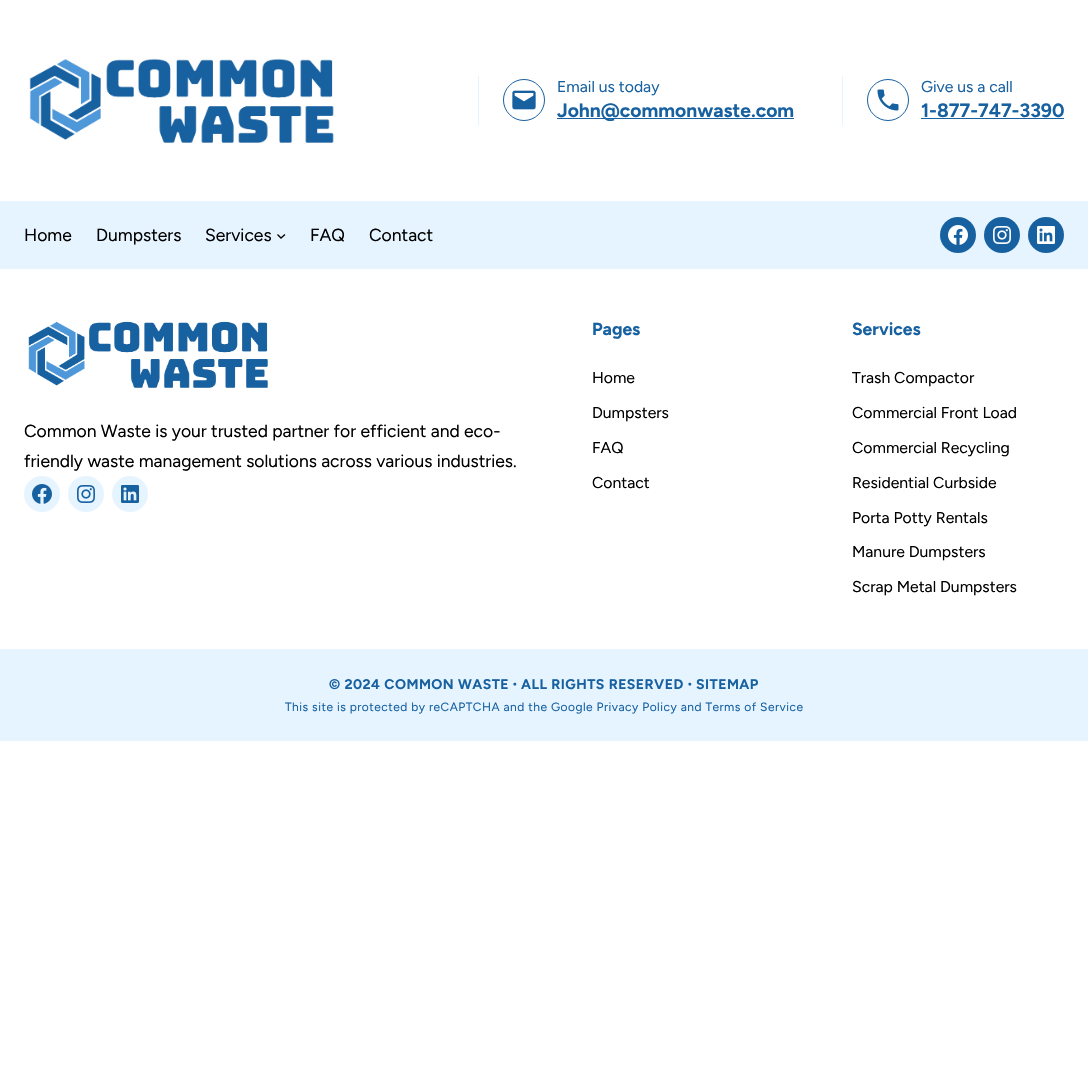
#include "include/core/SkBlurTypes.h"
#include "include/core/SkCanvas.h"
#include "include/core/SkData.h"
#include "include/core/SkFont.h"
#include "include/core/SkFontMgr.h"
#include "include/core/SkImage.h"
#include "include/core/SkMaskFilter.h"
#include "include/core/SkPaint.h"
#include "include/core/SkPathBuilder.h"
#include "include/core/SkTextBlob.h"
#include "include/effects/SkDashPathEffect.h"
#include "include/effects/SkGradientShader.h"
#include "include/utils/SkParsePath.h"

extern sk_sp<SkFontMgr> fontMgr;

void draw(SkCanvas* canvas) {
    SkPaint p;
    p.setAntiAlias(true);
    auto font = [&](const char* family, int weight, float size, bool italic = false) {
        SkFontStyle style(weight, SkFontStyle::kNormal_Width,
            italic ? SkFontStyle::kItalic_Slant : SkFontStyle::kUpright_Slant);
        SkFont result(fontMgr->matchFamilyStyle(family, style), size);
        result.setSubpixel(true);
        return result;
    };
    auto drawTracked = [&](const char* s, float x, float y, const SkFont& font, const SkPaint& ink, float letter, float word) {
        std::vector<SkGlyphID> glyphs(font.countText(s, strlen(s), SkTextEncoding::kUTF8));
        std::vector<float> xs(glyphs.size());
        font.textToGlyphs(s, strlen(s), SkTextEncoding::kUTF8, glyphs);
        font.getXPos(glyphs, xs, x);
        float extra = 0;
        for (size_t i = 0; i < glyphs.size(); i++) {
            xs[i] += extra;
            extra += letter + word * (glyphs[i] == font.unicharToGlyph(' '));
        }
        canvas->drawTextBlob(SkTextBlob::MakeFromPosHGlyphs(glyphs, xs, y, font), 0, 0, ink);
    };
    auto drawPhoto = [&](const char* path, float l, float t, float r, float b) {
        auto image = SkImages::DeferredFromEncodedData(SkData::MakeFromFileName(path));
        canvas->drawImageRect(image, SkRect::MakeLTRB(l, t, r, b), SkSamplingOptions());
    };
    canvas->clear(0xFFFFFFFF);
    drawPhoto("media/1.png", 29, 58, 334, 143);
    p.setColor(0xFFE6F4FF);
    canvas->drawRect(SkRect::MakeLTRB(478, 76, 479, 125), p);
    p.setStyle(SkPaint::kStroke_Style);
    p.setStrokeWidth(1);
    p.setColor(0xFF1761A1);
    canvas->drawCircle(524, 100, 20.5f, p);
    drawPhoto("media/2.png", 512, 90, 536, 110);
    auto font1 = font("Figtree", 400, 15.75f);
    p.setStyle(SkPaint::kFill_Style);
    canvas->drawString("Email us today", 557, 92, font1, p);
    canvas->drawRect(SkRect::MakeLTRB(557, 118, 794, 119), p);
    auto font2 = font("Figtree", 700, 19.25f);
    canvas->drawString("John@commonwaste.com", 557, 117, font2, p);
    p.setColor(0xFFE6F4FF);
    canvas->drawRect(SkRect::MakeLTRB(842, 76, 843, 125), p);
    p.setStyle(SkPaint::kStroke_Style);
    p.setColor(0xFF1761A1);
    canvas->drawCircle(888, 100, 20.5f, p);
    drawPhoto("media/3.png", 877, 89, 899, 111);
    p.setStyle(SkPaint::kFill_Style);
    canvas->drawString("Give us a call", 921, 92, font1, p);
    canvas->drawString("1-877-747-3390", 921, 117, font2, p);
    canvas->drawRect(SkRect::MakeLTRB(921, 118, 1064, 119), p);
    p.setColor(0xFFE6F4FF);
    canvas->drawRect(SkRect::MakeLTRB(0, 201, 1088, 269), p);
    auto font3 = font("Figtree", 400, 17.5f);
    p.setColor(0xFF000000);
    {
        const struct { const char* s; float x, y; } items[] = {
            {"Home", 24, 241},
            {"Dumpsters", 96, 241},
            {"Services", 205, 241},
        };
        for (auto [s, x, y] : items) {
            canvas->drawString(s, x, y, font3, p);
        }
    }
    p.setStyle(SkPaint::kStroke_Style);
    p.setStrokeWidth(1.3f);
    canvas->drawPath(SkPathBuilder().moveTo(277.5f, 234.5f).lineTo(281, 238).lineTo(285, 234.5f).detach(), p);
    p.setStyle(SkPaint::kFill_Style);
    canvas->drawString("FAQ", 310, 241, font3, p);
    canvas->drawString("Contact", 369, 241, font3, p);
    p.setColor(0xFF1761A1);
    canvas->drawCircle(958, 235, 18, p);
    drawPhoto("media/4.png", 948, 225, 968, 245);
    canvas->drawCircle(1002, 235, 18, p);
    drawPhoto("media/5.png", 993, 226, 1011, 244);
    canvas->drawCircle(1046, 235, 18, p);
    drawPhoto("media/6.png", 1037, 226, 1055, 244);
    drawPhoto("media/7.png", 28, 321, 268, 388);
    p.setColor(0xFF000000);
    canvas->drawString("Common Waste is your trusted partner for efficient and eco-", 24, 437, font3, p);
    canvas->drawString("friendly waste management solutions across various industries.", 24, 467, font3, p);
    p.setColor(0xFFE6F4FF);
    canvas->drawCircle(42, 494, 18, p);
    drawPhoto("media/8.png", 32, 484, 52, 504);
    canvas->drawCircle(86, 494, 18, p);
    drawPhoto("media/9.png", 77, 485, 95, 503);
    canvas->drawCircle(130, 494, 18, p);
    drawPhoto("media/10.png", 121, 485, 139, 503);
    auto font4 = font("Figtree", 700, 17.5f);
    p.setColor(0xFF1761A1);
    canvas->drawString("Pages", 592, 335, font4, p);
    p.setColor(0xFF000000);
    {
        const struct { const char* s; float x, y; } items[] = {
            {"Home", 592, 383},
            {"Dumpsters", 592, 418},
            {"FAQ", 592, 453},
            {"Contact", 592, 488},
        };
        for (auto [s, x, y] : items) {
            canvas->drawString(s, x, y, font1, p);
        }
    }
    p.setColor(0xFF1761A1);
    canvas->drawString("Services", 852, 335, font4, p);
    p.setColor(0xFF000000);
    {
        const struct { const char* s; float x, y; } items[] = {
            {"Trash Compactor", 852, 383},
            {"Commercial Front Load", 852, 418},
            {"Commercial Recycling", 852, 453},
            {"Residential Curbside", 852, 488},
            {"Porta Potty Rentals", 852, 523},
            {"Manure Dumpsters", 852, 557},
            {"Scrap Metal Dumpsters", 852, 592},
        };
        for (auto [s, x, y] : items) {
            canvas->drawString(s, x, y, font1, p);
        }
    }
    p.setColor(0xFFE6F4FF);
    canvas->drawRect(SkRect::MakeLTRB(0, 649, 1088, 741), p);
    auto font5 = font("Figtree", 700, 14);
    p.setColor(0xFF1761A1);
    drawTracked("© 2024 COMMON WASTE", 329, 689, font5, p, 0.48f, 0);
    auto font6 = font("Figtree", 900, 14);
    drawTracked("·", 513, 689, font6, p, 0.48f, 0);
    drawTracked("ALL RIGHTS RESERVED", 521, 689, font5, p, 0.48f, 0);
    drawTracked("·", 688, 689, font6, p, 0.48f, 0);
    drawTracked("SITEMAP", 696, 689, font5, p, 0.48f, 0);
    auto font7 = font("Figtree", 400, 12);
    drawTracked("This site is protected by reCAPTCHA and the Google Privacy Policy and Terms of Service", 285, 711, font7, p, 0.48f, 0);
}
